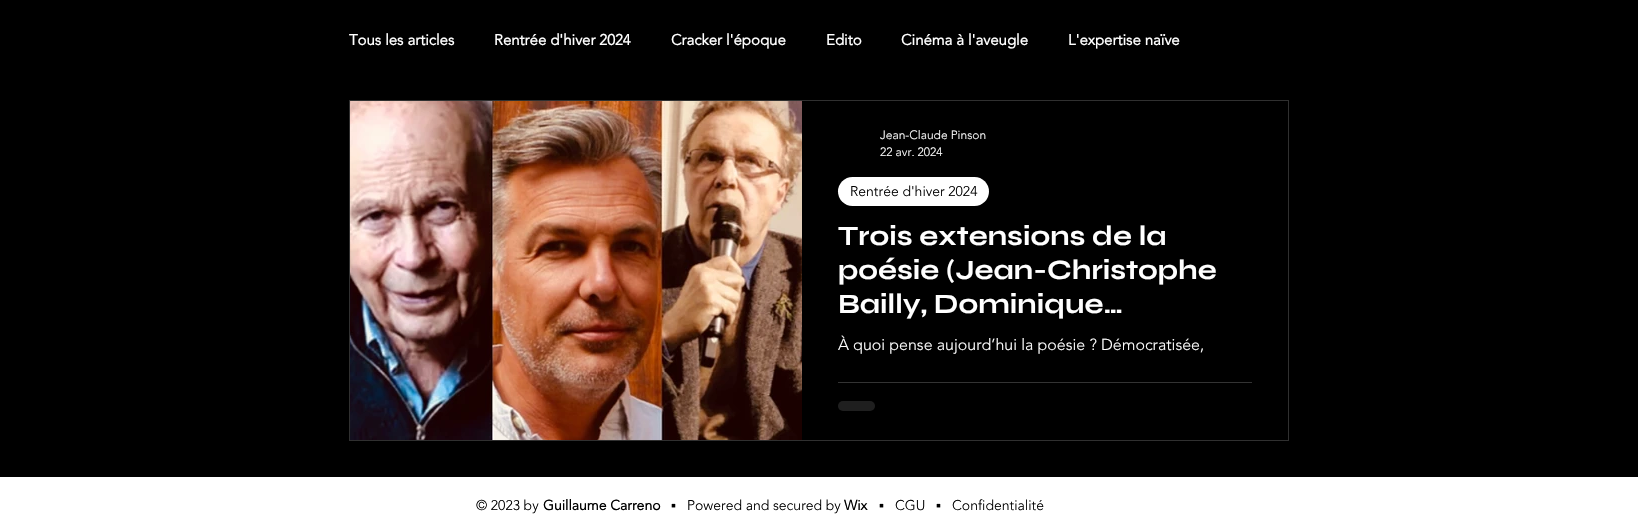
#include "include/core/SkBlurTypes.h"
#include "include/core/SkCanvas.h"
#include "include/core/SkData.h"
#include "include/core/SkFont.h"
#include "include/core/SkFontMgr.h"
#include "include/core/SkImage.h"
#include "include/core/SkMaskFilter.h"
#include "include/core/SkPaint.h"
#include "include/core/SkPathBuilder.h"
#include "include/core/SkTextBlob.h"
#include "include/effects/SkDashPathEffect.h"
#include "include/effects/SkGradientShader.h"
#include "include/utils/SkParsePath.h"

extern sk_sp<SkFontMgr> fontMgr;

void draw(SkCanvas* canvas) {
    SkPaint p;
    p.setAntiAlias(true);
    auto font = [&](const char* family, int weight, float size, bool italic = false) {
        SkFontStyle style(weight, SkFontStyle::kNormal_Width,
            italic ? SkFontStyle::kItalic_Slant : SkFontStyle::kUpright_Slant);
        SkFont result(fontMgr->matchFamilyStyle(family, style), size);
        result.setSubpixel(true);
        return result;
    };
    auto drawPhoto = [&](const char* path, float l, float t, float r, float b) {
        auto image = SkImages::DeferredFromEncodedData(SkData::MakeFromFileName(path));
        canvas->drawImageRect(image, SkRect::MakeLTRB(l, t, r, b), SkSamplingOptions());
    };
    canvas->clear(0xFF000000);
    auto font1 = font("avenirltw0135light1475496", 700, 15);
    p.setColor(0xFFFFFFFF);
    {
        const struct { const char* s; float x, y; } items[] = {
            {"Tous les articles", 349, 45},
            {"Rentrée d'hiver 2024", 494, 45},
            {"Cracker l'époque", 671, 45},
            {"Edito", 826, 45},
            {"Cinéma à l'aveugle", 901, 45},
            {"L'expertise naïve", 1068, 45},
        };
        for (auto [s, x, y] : items) {
            canvas->drawString(s, x, y, font1, p);
        }
    }
    p.setStyle(SkPaint::kStroke_Style);
    p.setStrokeWidth(1);
    p.setColor(0xFF303030);
    canvas->drawRect(SkRect::MakeLTRB(349.5f, 100.5f, 1288.5f, 440.5f), p);
    drawPhoto("media/1.png", 350, 101, 802, 440);
    auto font2 = font("avenirltw0135light1475496", 300, 12);
    p.setStyle(SkPaint::kFill_Style);
    p.setColor(0xFFFFFFFF);
    canvas->drawString("Jean-Claude Pinson", 880, 139, font2, p);
    canvas->drawString("22 avr. 2024", 880, 156, font2, p);
    canvas->drawRoundRect(SkRect::MakeLTRB(838, 177, 989, 206), 14.5f, 14.5f, p);
    auto font3 = font("avenirltw0135light1475496", 300, 14);
    p.setColor(0xFF000000);
    canvas->drawString("Rentrée d'hiver 2024", 850, 196, font3, p);
    auto font4 = font("Syne", 700, 28);
    p.setColor(0xFFFFFFFF);
    {
        const struct { const char* s; float x, y; } items[] = {
            {"Trois extensions de la", 838, 245},
            {"poésie (Jean-Christophe", 838, 279},
            {"Bailly, Dominique…", 838, 313},
        };
        for (auto [s, x, y] : items) {
            canvas->drawString(s, x, y, font4, p);
        }
    }
    auto font5 = font("avenirltw0135light1475496", 300, 16);
    canvas->drawString("À quoi pense aujourd’hui la poésie ? Démocratisée,", 838, 350, font5, p);
    p.setColor(0xFF333333);
    canvas->drawRect(SkRect::MakeLTRB(838, 382, 1252, 383), p);
    p.setColor(0xFF1F1F1F);
    canvas->drawRoundRect(SkRect::MakeLTRB(838, 401, 875, 411), 5, 5, p);
    p.setColor(0xFFFFFFFF);
    canvas->drawRect(SkRect::MakeLTRB(0, 477, 1638, 517), p);
    p.setColor(0xFF000000);
    canvas->drawString("© 2023 by", 476, 510, font3, p);
    auto font6 = font("avenirltw0135light1475496", 700, 14);
    canvas->drawString("Guillaume Carreno", 543, 510, font6, p);
    auto font7 = font("Liberation Sans", 400, 14);
    canvas->drawString("▪", 671, 510, font7, p);
    canvas->drawString("Powered and secured by", 687, 510, font3, p);
    canvas->drawString("Wix", 844, 510, font6, p);
    canvas->drawString("▪", 879, 510, font7, p);
    canvas->drawString("CGU", 895, 510, font3, p);
    canvas->drawString("▪", 936, 510, font7, p);
    canvas->drawString("Confidentialité", 952, 510, font3, p);
}
